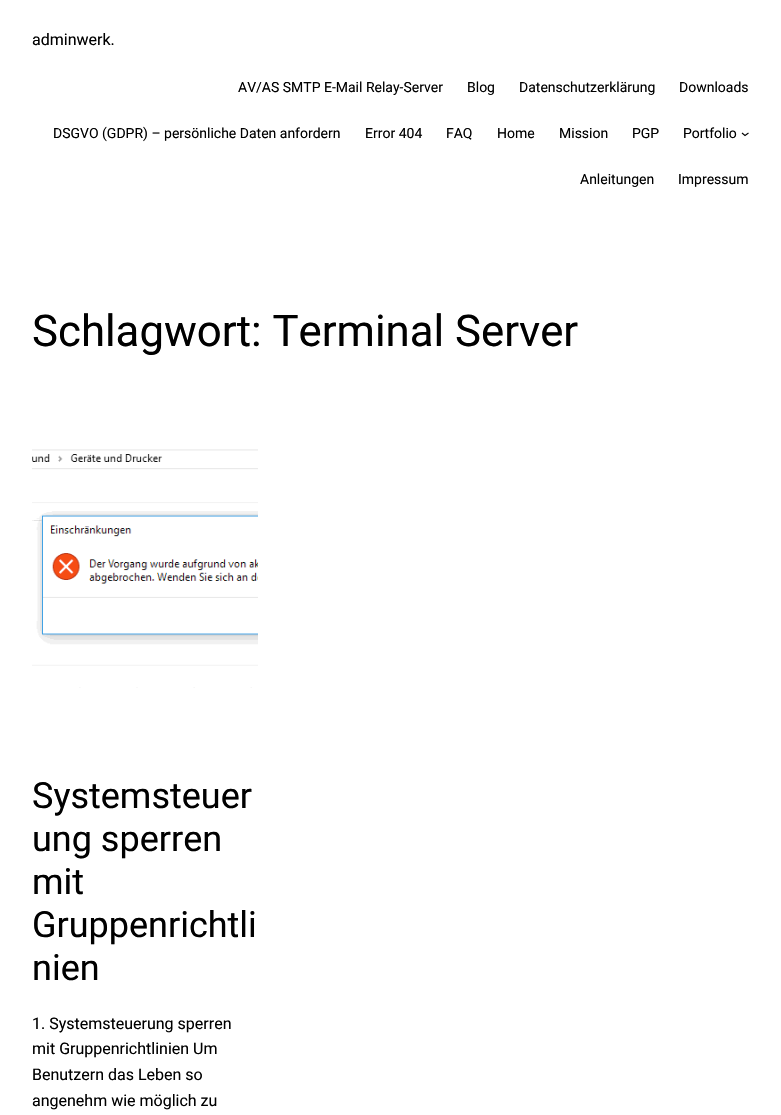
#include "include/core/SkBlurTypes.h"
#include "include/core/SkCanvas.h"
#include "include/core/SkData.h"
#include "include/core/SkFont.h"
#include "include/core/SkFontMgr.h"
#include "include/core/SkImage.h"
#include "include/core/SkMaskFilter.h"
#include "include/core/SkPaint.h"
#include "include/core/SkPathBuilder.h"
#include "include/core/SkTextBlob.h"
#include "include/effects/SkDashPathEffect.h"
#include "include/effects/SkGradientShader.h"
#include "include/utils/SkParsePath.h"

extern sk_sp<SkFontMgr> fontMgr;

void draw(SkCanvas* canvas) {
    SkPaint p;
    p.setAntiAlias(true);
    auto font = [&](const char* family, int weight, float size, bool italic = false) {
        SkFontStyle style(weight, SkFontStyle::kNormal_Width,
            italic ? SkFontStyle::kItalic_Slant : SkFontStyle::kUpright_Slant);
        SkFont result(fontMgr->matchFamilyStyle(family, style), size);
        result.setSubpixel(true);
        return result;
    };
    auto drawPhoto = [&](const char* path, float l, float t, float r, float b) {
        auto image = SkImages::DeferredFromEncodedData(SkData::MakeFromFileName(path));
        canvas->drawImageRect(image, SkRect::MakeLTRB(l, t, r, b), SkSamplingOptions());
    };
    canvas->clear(0xFFFFFFFF);
    auto font1 = font("Roboto", 400, 16);
    p.setColor(0xFF000000);
    canvas->drawString("adminwerk.", 32, 45, font1, p);
    auto font2 = font("Roboto", 400, 14);
    {
        const struct { const char* s; float x, y; } items[] = {
            {"AV/AS SMTP E-Mail Relay-Server", 238, 92},
            {"Blog", 467, 92},
            {"Datenschutzerklärung", 519, 92},
            {"Downloads", 679, 92},
            {"DSGVO (GDPR) – persönliche Daten anfordern", 53, 138},
            {"Error 404", 365, 138},
            {"FAQ", 446, 138},
            {"Home", 497, 138},
            {"Mission", 559, 138},
            {"PGP", 632, 138},
            {"Portfolio", 683, 138},
        };
        for (auto [s, x, y] : items) {
            canvas->drawString(s, x, y, font2, p);
        }
    }
    p.setStyle(SkPaint::kStroke_Style);
    p.setStrokeWidth(1.1f);
    canvas->drawPath(SkPathBuilder().moveTo(742, 133).lineTo(745, 135.5f).lineTo(748.5f, 133).detach(), p);
    p.setStyle(SkPaint::kFill_Style);
    canvas->drawString("Anleitungen", 580, 184, font2, p);
    canvas->drawString("Impressum", 678, 184, font2, p);
    auto font3 = font("Roboto", 400, 43.75f);
    canvas->drawString("Schlagwort: Terminal Server", 32, 346, font3, p);
    drawPhoto("media/1.png", 32, 449, 258, 688);
    auto font4 = font("Roboto", 400, 36);
    {
        const struct { const char* s; float x, y; } items[] = {
            {"Systemsteuer", 32, 808},
            {"ung sperren", 32, 851},
            {"mit", 32, 894},
            {"Gruppenrichtli", 32, 937},
            {"nien", 32, 980},
        };
        for (auto [s, x, y] : items) {
            canvas->drawString(s, x, y, font4, p);
        }
    }
    {
        const struct { const char* s; float x, y; } items[] = {
            {"1. Systemsteuerung sperren", 32, 1029},
            {"mit Gruppenrichtlinien Um", 32, 1054},
            {"Benutzern das Leben so", 32, 1080},
            {"angenehm wie möglich zu", 32, 1106},
        };
        for (auto [s, x, y] : items) {
            canvas->drawString(s, x, y, font1, p);
        }
    }
}
